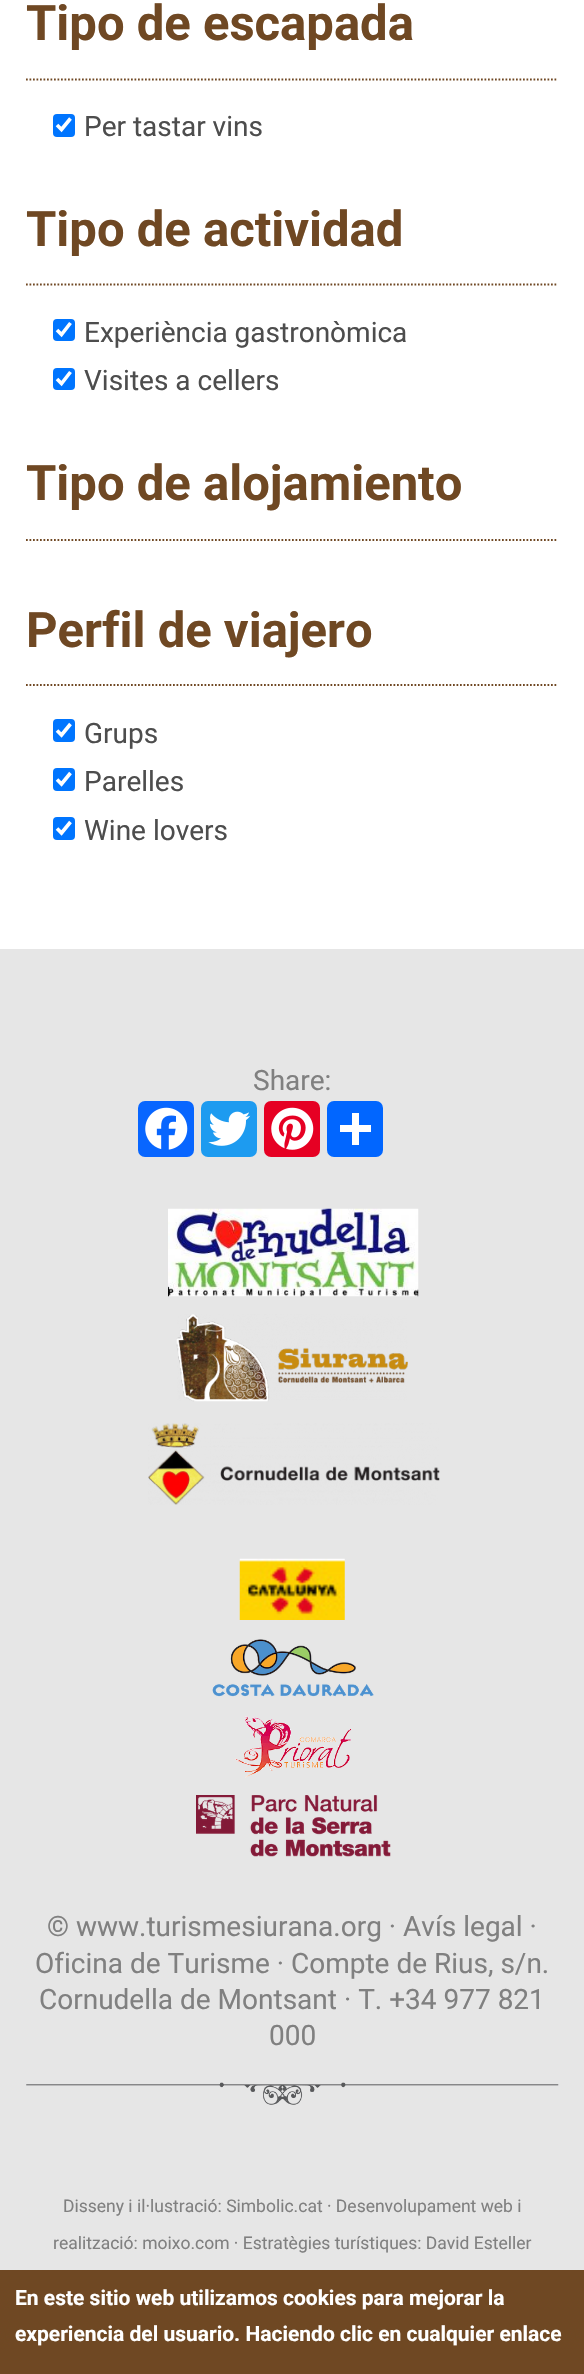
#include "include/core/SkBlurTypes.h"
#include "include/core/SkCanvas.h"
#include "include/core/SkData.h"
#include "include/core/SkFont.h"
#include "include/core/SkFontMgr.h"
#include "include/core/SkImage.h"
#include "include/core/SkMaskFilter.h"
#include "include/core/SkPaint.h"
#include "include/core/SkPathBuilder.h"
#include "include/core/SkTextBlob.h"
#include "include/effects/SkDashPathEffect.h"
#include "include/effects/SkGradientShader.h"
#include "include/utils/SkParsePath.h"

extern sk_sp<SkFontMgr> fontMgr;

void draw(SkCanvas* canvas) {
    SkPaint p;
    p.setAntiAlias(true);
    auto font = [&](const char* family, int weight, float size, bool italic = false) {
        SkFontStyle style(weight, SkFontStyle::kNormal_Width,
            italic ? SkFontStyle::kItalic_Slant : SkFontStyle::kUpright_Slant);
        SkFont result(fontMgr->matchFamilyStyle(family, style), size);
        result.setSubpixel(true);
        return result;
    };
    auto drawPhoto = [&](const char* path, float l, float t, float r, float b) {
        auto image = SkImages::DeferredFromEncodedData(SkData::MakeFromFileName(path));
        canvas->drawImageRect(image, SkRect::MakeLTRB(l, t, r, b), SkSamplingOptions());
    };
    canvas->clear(0xFFFFFFFF);
    p.setStyle(SkPaint::kStroke_Style);
    p.setStrokeWidth(1.8f);
    p.setColor(0xFF6F4823);
    p.setPathEffect(SkDashPathEffect::Make({{1.75f, 1.75f}}, 0));
    canvas->drawPath(SkPathBuilder().moveTo(26, 79.5f).lineTo(558, 79.5f).detach(), p);
    p.setPathEffect(nullptr);
    auto font1 = font("Roboto", 700, 49);
    p.setStyle(SkPaint::kFill_Style);
    canvas->drawString("Tipo de escapada", 26, 40, font1, p);
    p.setColor(0xFF0075FF);
    canvas->drawRoundRect(SkRect::MakeLTRB(53, 114, 75, 137), 4, 4, p);
    p.setStyle(SkPaint::kStroke_Style);
    p.setStrokeWidth(3.6f);
    p.setColor(0xFFFFFFFF);
    canvas->drawPath(SkPathBuilder().moveTo(57, 125).lineTo(61.5f, 129.5f).lineTo(70.5f, 118.5f).detach(), p);
    auto font2 = font("Roboto", 400, 28);
    p.setStyle(SkPaint::kFill_Style);
    p.setColor(0xFF4D4D4D);
    canvas->drawString("Per tastar vins", 84, 136, font2, p);
    p.setStyle(SkPaint::kStroke_Style);
    p.setStrokeWidth(1.8f);
    p.setColor(0xFF6F4823);
    p.setPathEffect(SkDashPathEffect::Make({{1.75f, 1.75f}}, 0));
    canvas->drawPath(SkPathBuilder().moveTo(26, 284.5f).lineTo(558, 284.5f).detach(), p);
    p.setPathEffect(nullptr);
    p.setStyle(SkPaint::kFill_Style);
    canvas->drawString("Tipo de actividad", 26, 246, font1, p);
    p.setColor(0xFF0075FF);
    canvas->drawRoundRect(SkRect::MakeLTRB(53, 319, 75, 341), 4, 4, p);
    p.setStyle(SkPaint::kStroke_Style);
    p.setStrokeWidth(3.6f);
    p.setColor(0xFFFFFFFF);
    canvas->drawPath(SkPathBuilder().moveTo(57, 330).lineTo(61.5f, 334.5f).lineTo(70.5f, 323).detach(), p);
    p.setStyle(SkPaint::kFill_Style);
    p.setColor(0xFF4D4D4D);
    canvas->drawString("Experiència gastronòmica", 84, 342, font2, p);
    p.setColor(0xFF0075FF);
    canvas->drawRoundRect(SkRect::MakeLTRB(53, 368, 75, 390), 4, 4, p);
    p.setStyle(SkPaint::kStroke_Style);
    p.setColor(0xFFFFFFFF);
    canvas->drawPath(SkPathBuilder().moveTo(57, 379).lineTo(61.5f, 383.5f).lineTo(70.5f, 372).detach(), p);
    p.setStyle(SkPaint::kFill_Style);
    p.setColor(0xFF4D4D4D);
    canvas->drawString("Visites a cellers", 84, 390, font2, p);
    p.setStyle(SkPaint::kStroke_Style);
    p.setStrokeWidth(1.8f);
    p.setColor(0xFF6F4823);
    p.setPathEffect(SkDashPathEffect::Make({{1.75f, 1.75f}}, 0));
    canvas->drawPath(SkPathBuilder().moveTo(26, 540).lineTo(558, 540).detach(), p);
    p.setPathEffect(nullptr);
    p.setStyle(SkPaint::kFill_Style);
    canvas->drawString("Tipo de alojamiento", 26, 500, font1, p);
    p.setStyle(SkPaint::kStroke_Style);
    p.setPathEffect(SkDashPathEffect::Make({{1.75f, 1.75f}}, 0));
    canvas->drawPath(SkPathBuilder().moveTo(26, 685).lineTo(558, 685).detach(), p);
    p.setPathEffect(nullptr);
    p.setStyle(SkPaint::kFill_Style);
    canvas->drawString("Perfil de viajero", 26, 647, font1, p);
    p.setColor(0xFF0075FF);
    canvas->drawRoundRect(SkRect::MakeLTRB(53, 719, 75, 742), 4, 4, p);
    p.setStyle(SkPaint::kStroke_Style);
    p.setStrokeWidth(3.6f);
    p.setColor(0xFFFFFFFF);
    canvas->drawPath(SkPathBuilder().moveTo(57, 730.5f).lineTo(61.5f, 735).lineTo(70.5f, 724).detach(), p);
    p.setStyle(SkPaint::kFill_Style);
    p.setColor(0xFF4D4D4D);
    canvas->drawString("Grups", 84, 743, font2, p);
    p.setColor(0xFF0075FF);
    canvas->drawRoundRect(SkRect::MakeLTRB(53, 768, 75, 791), 4, 4, p);
    p.setStyle(SkPaint::kStroke_Style);
    p.setColor(0xFFFFFFFF);
    canvas->drawPath(SkPathBuilder().moveTo(57, 779.5f).lineTo(61.5f, 784).lineTo(70.5f, 773).detach(), p);
    p.setStyle(SkPaint::kFill_Style);
    p.setColor(0xFF4D4D4D);
    canvas->drawString("Parelles", 84, 791, font2, p);
    p.setColor(0xFF0075FF);
    canvas->drawRoundRect(SkRect::MakeLTRB(53, 817, 75, 840), 4, 4, p);
    p.setStyle(SkPaint::kStroke_Style);
    p.setColor(0xFFFFFFFF);
    canvas->drawPath(SkPathBuilder().moveTo(57, 828.5f).lineTo(61.5f, 833).lineTo(70.5f, 822).detach(), p);
    p.setStyle(SkPaint::kFill_Style);
    p.setColor(0xFF4D4D4D);
    canvas->drawString("Wine lovers", 84, 840, font2, p);
    p.setColor(0xFFE6E6E6);
    canvas->drawRect(SkRect::MakeLTRB(0, 949, 584, 2270), p);
    p.setColor(0xFF808080);
    canvas->drawString("Share:", 253, 1090, font2, p);
    p.setColor(0xFF0866FF);
    canvas->drawRoundRect(SkRect::MakeLTRB(138, 1101, 194, 1157), 7, 7, p);
    drawPhoto("media/1.png", 145, 1107, 188, 1150);
    p.setColor(0xFF1D9BF0);
    canvas->drawRoundRect(SkRect::MakeLTRB(201, 1101, 257, 1157), 7, 7, p);
    drawPhoto("media/2.png", 208, 1111, 251, 1146);
    p.setColor(0xFFE60023);
    canvas->drawRoundRect(SkRect::MakeLTRB(264, 1101, 320, 1157), 7, 7, p);
    drawPhoto("media/3.png", 271, 1107, 314, 1150);
    p.setColor(0xFF0166FF);
    canvas->drawRoundRect(SkRect::MakeLTRB(327, 1101, 383, 1157), 7, 7, p);
    p.setColor(0xFFFFFFFF);
    canvas->drawRect(SkRect::MakeLTRB(352, 1113, 359, 1145), p);
    canvas->drawRect(SkRect::MakeLTRB(340, 1125, 371, 1132), p);
    drawPhoto("media/4.png", 168, 1208, 419, 1297);
    drawPhoto("media/5.png", 176, 1314, 408, 1402);
    drawPhoto("media/6.png", 148, 1423, 440, 1505);
    drawPhoto("media/7.png", 239, 1558, 345, 1620);
    drawPhoto("media/8.png", 212, 1639, 374, 1697);
    drawPhoto("media/9.png", 235, 1716, 351, 1778);
    drawPhoto("media/10.png", 196, 1795, 391, 1857);
    p.setColor(0xFF808080);
    {
        const struct { const char* s; float x, y; } items[] = {
            {"© www.turismesiurana.org · Avís legal ·", 47, 1936},
            {"Oficina de Turisme · Compte de Rius, s/n.", 35, 1973},
            {"Cornudella de Montsant · T. +34 977 821", 39, 2009},
            {"000", 269, 2045},
        };
        for (auto [s, x, y] : items) {
            canvas->drawString(s, x, y, font2, p);
        }
    }
    drawPhoto("media/11.png", 26, 2082, 559, 2105);
    auto font3 = font("Roboto", 400, 17.5f);
    canvas->drawString("Disseny i il·lustració: Simbolic.cat · Desenvolupament web i", 63, 2212, font3, p);
    canvas->drawString("realització: moixo.com · Estratègies turístiques: David Esteller", 53, 2249, font3, p);
    p.setColor(0xFF6F4823);
    canvas->drawRect(SkRect::MakeLTRB(0, 2270, 584, 2374), p);
    auto font4 = font("Roboto", 700, 21);
    p.setColor(0xFFFFFFFF);
    canvas->drawString("En este sitio web utilizamos cookies para mejorar la", 15, 2305, font4, p);
    canvas->drawString("experiencia del usuario. Haciendo clic en cualquier enlace", 15, 2341, font4, p);
}
